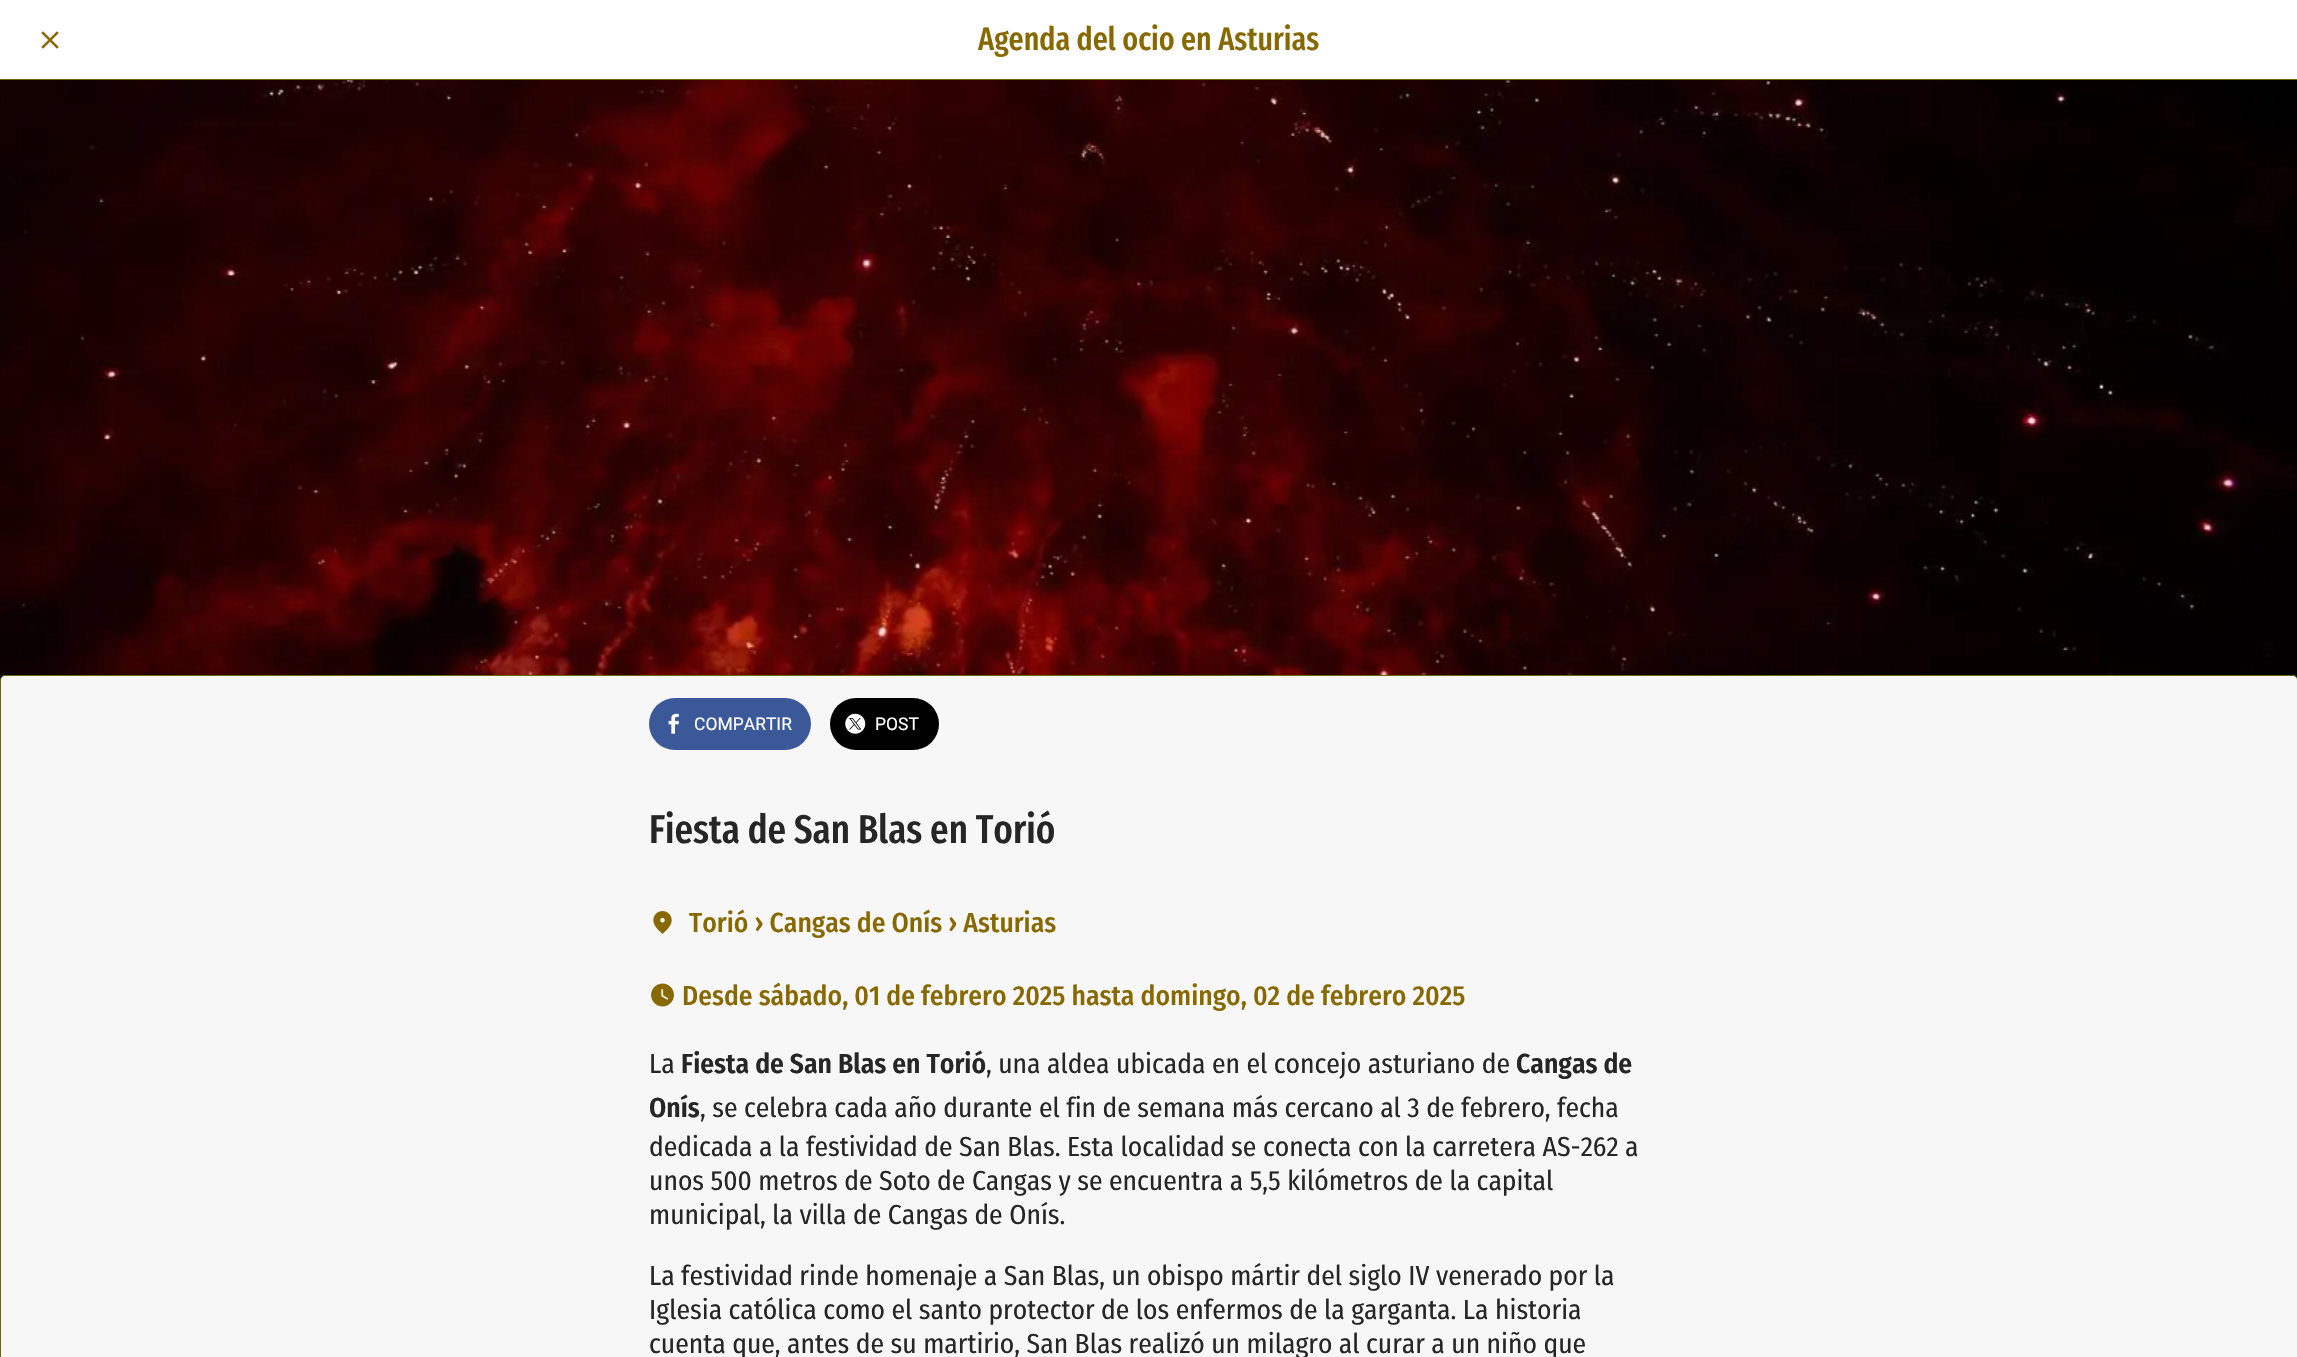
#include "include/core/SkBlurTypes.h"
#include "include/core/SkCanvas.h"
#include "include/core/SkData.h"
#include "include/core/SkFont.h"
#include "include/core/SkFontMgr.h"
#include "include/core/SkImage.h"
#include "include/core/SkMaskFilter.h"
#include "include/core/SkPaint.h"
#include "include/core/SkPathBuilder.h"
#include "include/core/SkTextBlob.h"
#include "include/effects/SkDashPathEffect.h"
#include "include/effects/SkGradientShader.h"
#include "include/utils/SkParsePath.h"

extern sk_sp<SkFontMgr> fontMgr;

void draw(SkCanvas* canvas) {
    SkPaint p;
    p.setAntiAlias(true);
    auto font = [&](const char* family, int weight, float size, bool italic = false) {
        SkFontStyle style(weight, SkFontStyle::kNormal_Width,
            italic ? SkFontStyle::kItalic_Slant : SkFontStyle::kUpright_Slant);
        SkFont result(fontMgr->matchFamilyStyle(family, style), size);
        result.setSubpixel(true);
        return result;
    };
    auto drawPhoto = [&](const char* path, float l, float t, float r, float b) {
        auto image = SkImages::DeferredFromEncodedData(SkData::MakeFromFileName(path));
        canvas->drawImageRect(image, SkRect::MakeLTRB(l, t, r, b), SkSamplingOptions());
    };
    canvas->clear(0xFFFFFFFF);
    p.setColor(0xFF686800);
    canvas->drawRect(SkRect::MakeLTRB(0, 79, 2297, 80), p);
    drawPhoto("media/1.png", 41, 31, 59, 49);
    auto font1 = font("Fira Sans Extra Condensed", 500, 32.5f);
    p.setColor(0xFF886800);
    canvas->drawString("Agenda del ocio en Asturias", 978, 50, font1, p);
    drawPhoto("media/2.png", 0, 80, 2297, 680);
    p.setColor(0x33000000);
    p.setMaskFilter(SkMaskFilter::MakeBlur(kNormal_SkBlurStyle, 4));
    canvas->drawRoundRect(SkRect::MakeLTRB(0, 679, 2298, 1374), 5, 5, p);
    p.setMaskFilter(nullptr);
    p.setColor(0xFFF7F7F7);
    canvas->drawPath(SkPathBuilder().moveTo(5, 675.5f).lineTo(2293, 675.5f).cubicTo(2295.5f, 675.5f, 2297.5f, 677.5f, 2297.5f, 680).lineTo(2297.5f, 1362.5f).lineTo(0.5f, 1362.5f).lineTo(0.5f, 680).cubicTo(0.5f, 677.5f, 2.5f, 675.5f, 5, 675.5f).close().detach(), p);
    p.setStyle(SkPaint::kStroke_Style);
    p.setStrokeWidth(1);
    p.setColor(0xFF686800);
    canvas->drawPath(SkPathBuilder().moveTo(5, 675.5f).lineTo(2293, 675.5f).cubicTo(2295.5f, 675.5f, 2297.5f, 677.5f, 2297.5f, 680).lineTo(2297.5f, 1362.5f).lineTo(0.5f, 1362.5f).lineTo(0.5f, 680).cubicTo(0.5f, 677.5f, 2.5f, 675.5f, 5, 675.5f).close().detach(), p);
    p.setStyle(SkPaint::kFill_Style);
    p.setColor(0xFF3B5999);
    canvas->drawRoundRect(SkRect::MakeLTRB(649, 698, 811, 750), 26, 26, p);
    drawPhoto("media/3.png", 668, 713, 679, 734);
    auto font2 = font("Roboto", 400, 17.5f);
    p.setColor(0xFFFFFFFF);
    canvas->drawString("COMPARTIR", 694, 730, font2, p);
    p.setColor(0xFF000000);
    canvas->drawRoundRect(SkRect::MakeLTRB(830, 698, 939, 750), 26, 26, p);
    drawPhoto("media/4.png", 845, 713, 866, 734);
    p.setColor(0xFFFFFFFF);
    canvas->drawString("POST", 875, 730, font2, p);
    auto font3 = font("Fira Sans Extra Condensed", 500, 40);
    p.setColor(0xFF262626);
    canvas->drawString("Fiesta de San Blas en Torió", 649, 843, font3, p);
    drawPhoto("media/5.png", 653, 911, 672, 934);
    auto font4 = font("Fira Sans Condensed", 500, 27.5f);
    p.setColor(0xFF886800);
    canvas->drawString("Torió › Cangas de Onís › Asturias", 689, 932, font4, p);
    drawPhoto("media/6.png", 651, 983, 674, 1007);
    canvas->drawString("Desde sábado, 01 de febrero 2025 hasta domingo, 02 de febrero 2025", 682, 1005, font4, p);
    auto font5 = font("Fira Sans Condensed", 400, 27.5f);
    p.setColor(0xFF262626);
    canvas->drawString("La", 649, 1073, font5, p);
    auto font6 = font("Fira Sans Condensed", 600, 27.5f);
    canvas->drawString("Fiesta de San Blas en Torió", 681, 1073, font6, p);
    canvas->drawString(", una aldea ubicada en el concejo asturiano de", 986, 1073, font5, p);
    canvas->drawString("Cangas de", 1516, 1073, font6, p);
    canvas->drawString("Onís", 649, 1117, font6, p);
    {
        const struct { const char* s; float x, y; } items[] = {
            {", se celebra cada año durante el fin de semana más cercano al 3 de febrero, fecha", 700, 1117},
            {"dedicada a la festividad de San Blas. Esta localidad se conecta con la carretera AS-262 a", 649, 1156},
            {"unos 500 metros de Soto de Cangas y se encuentra a 5,5 kilómetros de la capital", 649, 1190},
            {"municipal, la villa de Cangas de Onís.", 649, 1224},
            {"La festividad rinde homenaje a San Blas, un obispo mártir del siglo IV venerado por la", 649, 1285},
            {"Iglesia católica como el santo protector de los enfermos de la garganta. La historia", 649, 1319},
            {"cuenta que, antes de su martirio, San Blas realizó un milagro al curar a un niño que", 649, 1353},
        };
        for (auto [s, x, y] : items) {
            canvas->drawString(s, x, y, font5, p);
        }
    }
}
